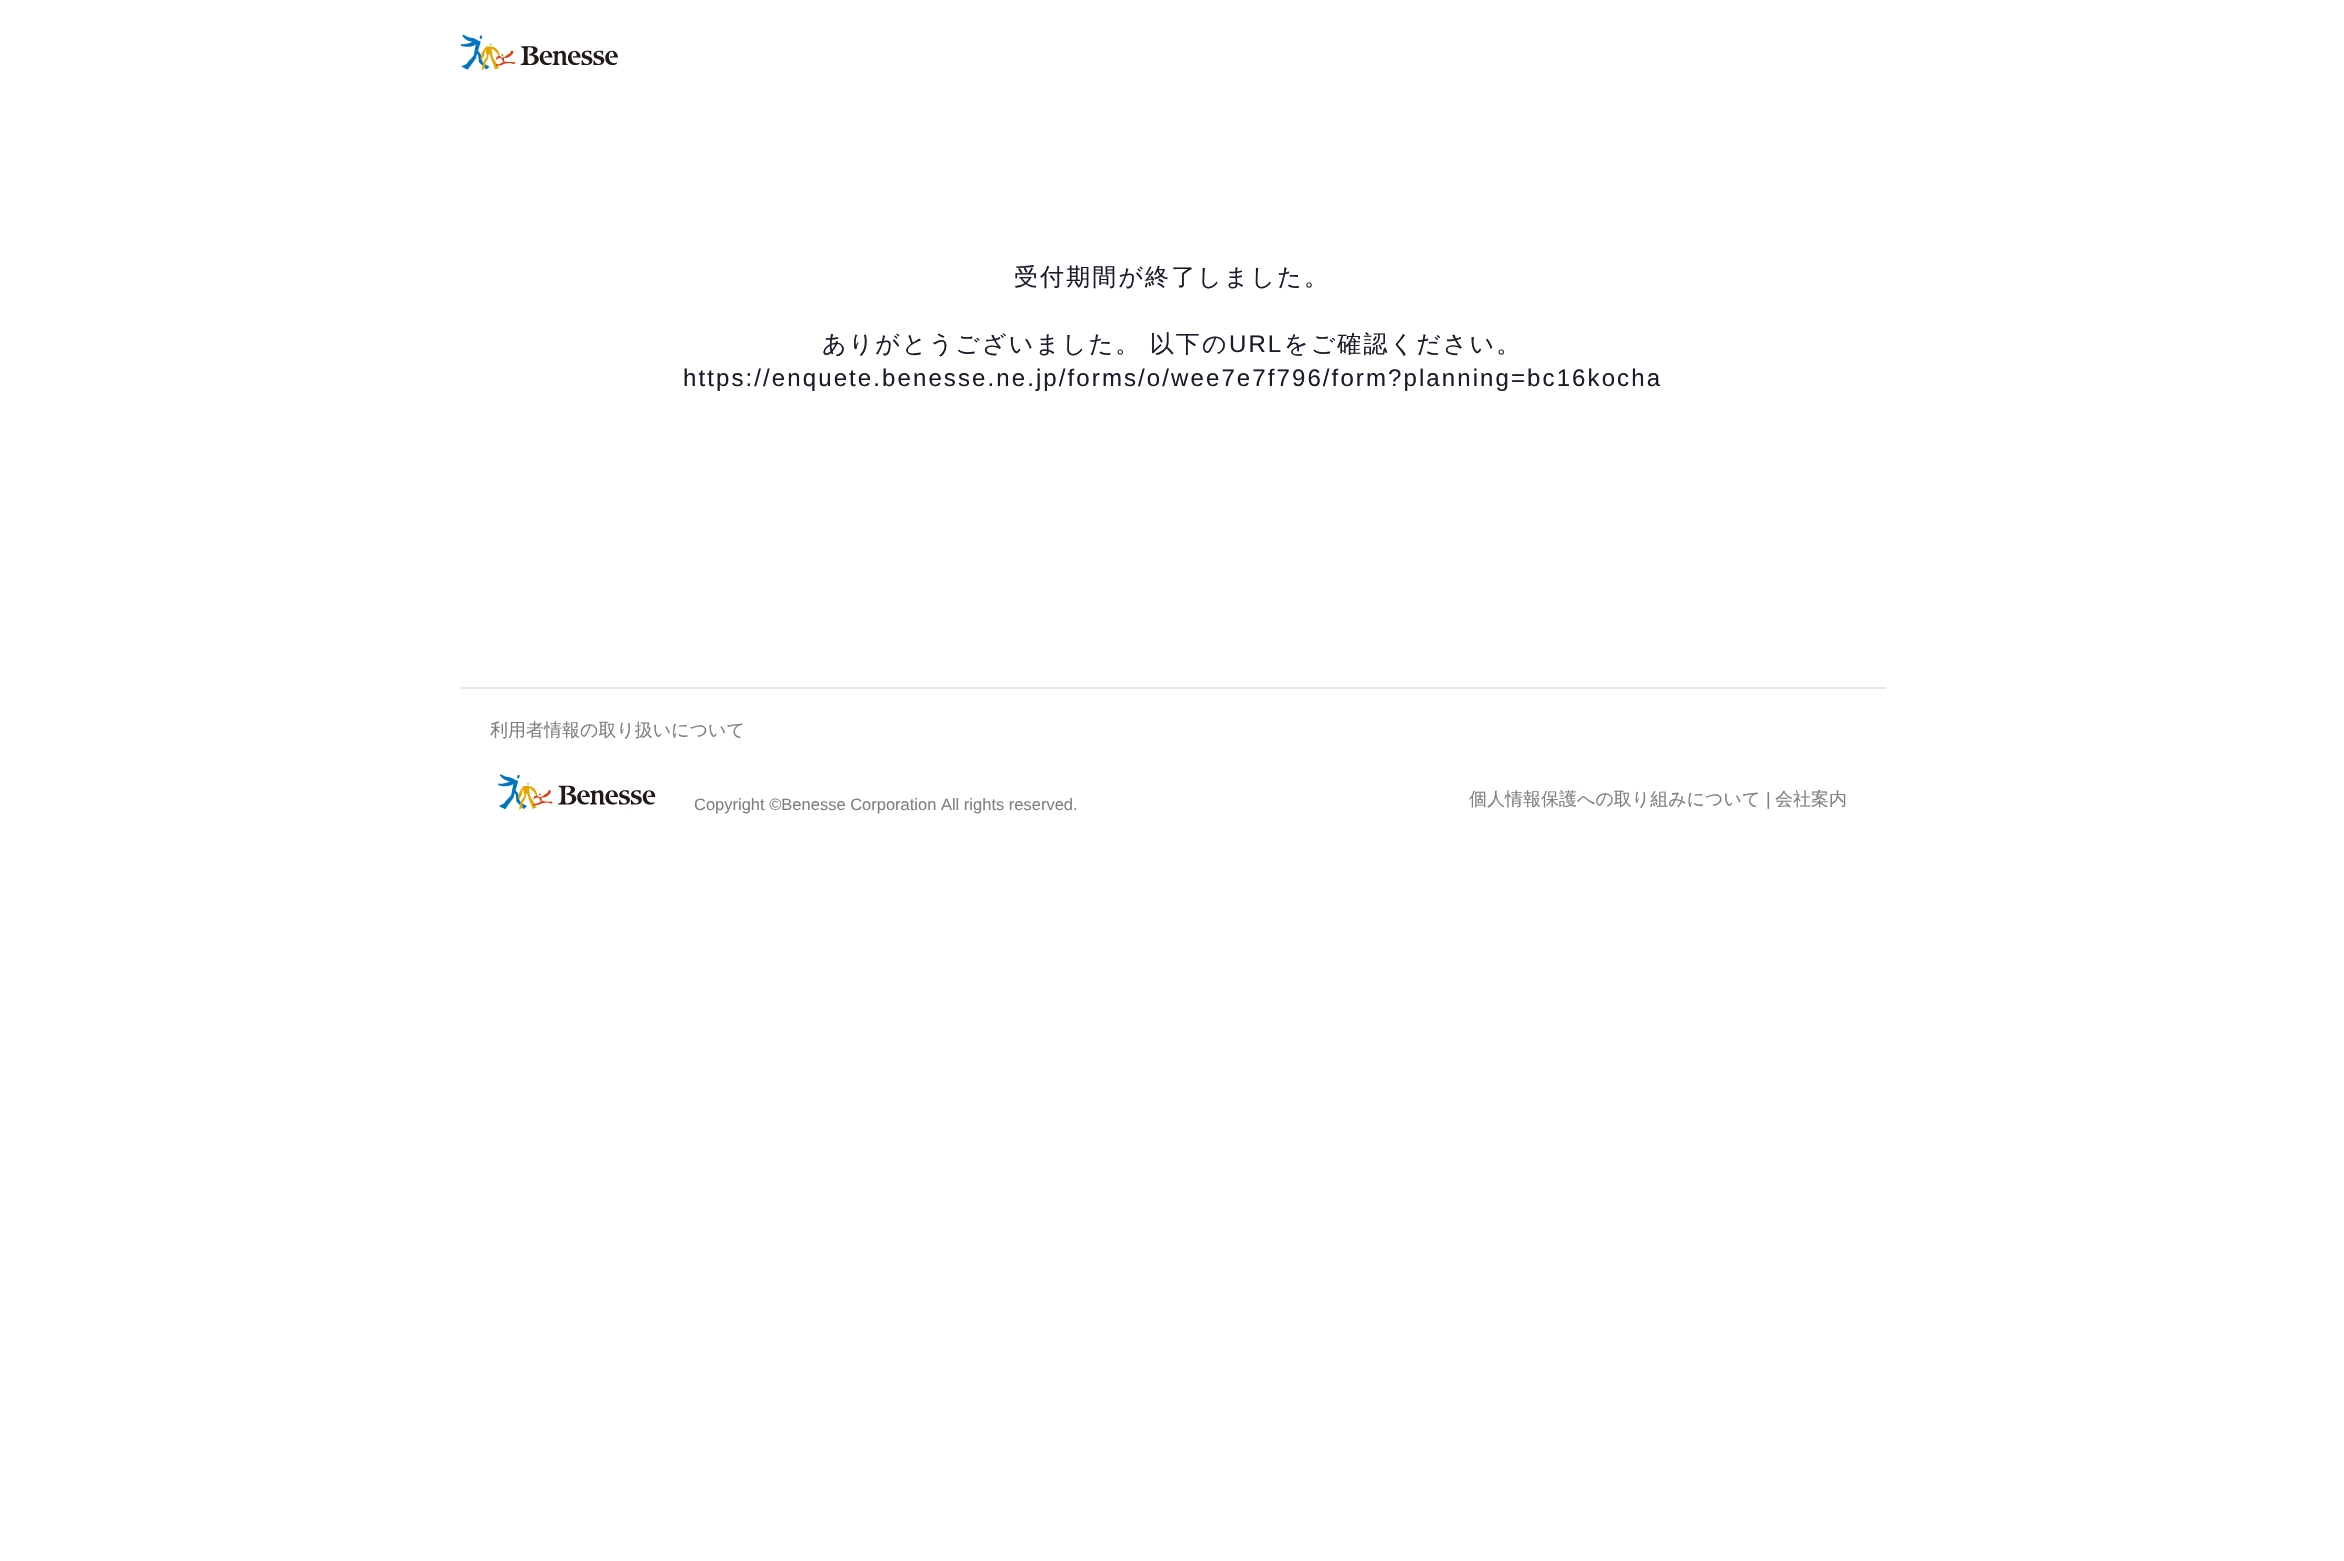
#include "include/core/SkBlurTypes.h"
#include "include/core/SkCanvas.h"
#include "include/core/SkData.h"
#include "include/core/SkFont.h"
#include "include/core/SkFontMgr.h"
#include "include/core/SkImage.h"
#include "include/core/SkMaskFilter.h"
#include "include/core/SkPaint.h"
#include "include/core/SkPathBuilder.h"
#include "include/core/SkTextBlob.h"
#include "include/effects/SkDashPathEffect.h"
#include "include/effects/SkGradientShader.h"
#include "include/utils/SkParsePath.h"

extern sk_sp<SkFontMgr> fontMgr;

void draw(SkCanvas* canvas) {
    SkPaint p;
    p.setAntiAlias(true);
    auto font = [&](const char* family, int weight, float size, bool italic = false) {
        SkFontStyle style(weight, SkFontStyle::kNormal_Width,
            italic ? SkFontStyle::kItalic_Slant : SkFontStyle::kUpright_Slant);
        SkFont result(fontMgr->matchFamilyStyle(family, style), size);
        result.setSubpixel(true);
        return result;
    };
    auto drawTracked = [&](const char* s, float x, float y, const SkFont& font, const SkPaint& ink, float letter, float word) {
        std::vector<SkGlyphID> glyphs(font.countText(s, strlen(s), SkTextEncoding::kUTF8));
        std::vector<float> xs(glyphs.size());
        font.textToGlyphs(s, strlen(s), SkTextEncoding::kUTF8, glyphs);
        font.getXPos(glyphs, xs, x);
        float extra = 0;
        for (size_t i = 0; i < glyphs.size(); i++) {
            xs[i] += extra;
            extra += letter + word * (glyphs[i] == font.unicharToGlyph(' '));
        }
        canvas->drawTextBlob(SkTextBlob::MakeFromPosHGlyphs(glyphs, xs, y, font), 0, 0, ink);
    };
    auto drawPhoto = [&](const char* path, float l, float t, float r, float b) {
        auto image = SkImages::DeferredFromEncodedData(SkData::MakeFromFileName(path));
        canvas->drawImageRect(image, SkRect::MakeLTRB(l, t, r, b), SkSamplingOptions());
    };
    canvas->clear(0xFFFFFFFF);
    drawPhoto("media/1.png", 461, 35, 618, 71);
    auto font1 = font("WenQuanYi Zen Hei", 500, 24);
    p.setColor(0xFF1B1B2B);
    drawTracked("受付期間が終了しました。", 1014, 285, font1, p, 2.1f, 0);
    drawTracked("ありがとうございました。 以下の", 822, 352, font1, p, 2.1f, -1);
    auto font2 = font("Liberation Sans", 400, 24);
    drawTracked("URL", 1229, 352, font2, p, 2.1f, 0);
    drawTracked("をご確認ください。", 1284, 352, font1, p, 2.1f, 0);
    drawTracked("https://enquete.benesse.ne.jp/forms/o/wee7e7f796/form?planning=bc16kocha", 683, 386, font2, p, 2.1f, 0);
    p.setColor(0xFFE6E6E6);
    canvas->drawRect(SkRect::MakeLTRB(461, 687, 1886, 689), p);
    auto font3 = font("WenQuanYi Zen Hei", 500, 18);
    p.setColor(0xFF808080);
    canvas->drawString("利用者情報の取り扱いについて", 490, 736, font3, p);
    drawPhoto("media/2.png", 498, 774, 656, 810);
    auto font4 = font("Liberation Sans", 400, 16.5f);
    canvas->drawString("Copyright ©Benesse Corporation All rights reserved.", 694, 810, font4, p);
    canvas->drawString("個人情報保護への取り組みについて", 1469, 805, font3, p);
    auto font5 = font("Liberation Sans", 400, 18);
    canvas->drawString("|", 1766, 805, font5, p);
    canvas->drawString("会社案内", 1775, 805, font3, p);
}
